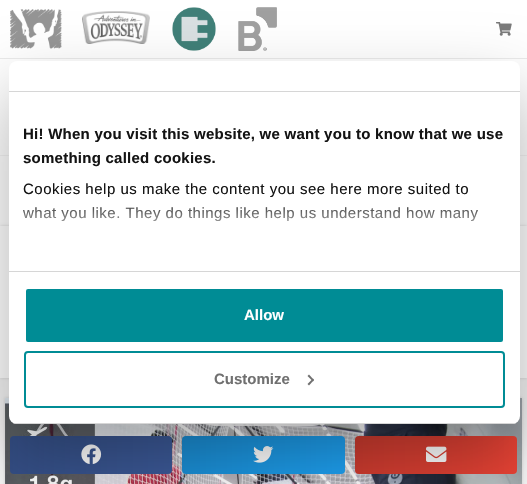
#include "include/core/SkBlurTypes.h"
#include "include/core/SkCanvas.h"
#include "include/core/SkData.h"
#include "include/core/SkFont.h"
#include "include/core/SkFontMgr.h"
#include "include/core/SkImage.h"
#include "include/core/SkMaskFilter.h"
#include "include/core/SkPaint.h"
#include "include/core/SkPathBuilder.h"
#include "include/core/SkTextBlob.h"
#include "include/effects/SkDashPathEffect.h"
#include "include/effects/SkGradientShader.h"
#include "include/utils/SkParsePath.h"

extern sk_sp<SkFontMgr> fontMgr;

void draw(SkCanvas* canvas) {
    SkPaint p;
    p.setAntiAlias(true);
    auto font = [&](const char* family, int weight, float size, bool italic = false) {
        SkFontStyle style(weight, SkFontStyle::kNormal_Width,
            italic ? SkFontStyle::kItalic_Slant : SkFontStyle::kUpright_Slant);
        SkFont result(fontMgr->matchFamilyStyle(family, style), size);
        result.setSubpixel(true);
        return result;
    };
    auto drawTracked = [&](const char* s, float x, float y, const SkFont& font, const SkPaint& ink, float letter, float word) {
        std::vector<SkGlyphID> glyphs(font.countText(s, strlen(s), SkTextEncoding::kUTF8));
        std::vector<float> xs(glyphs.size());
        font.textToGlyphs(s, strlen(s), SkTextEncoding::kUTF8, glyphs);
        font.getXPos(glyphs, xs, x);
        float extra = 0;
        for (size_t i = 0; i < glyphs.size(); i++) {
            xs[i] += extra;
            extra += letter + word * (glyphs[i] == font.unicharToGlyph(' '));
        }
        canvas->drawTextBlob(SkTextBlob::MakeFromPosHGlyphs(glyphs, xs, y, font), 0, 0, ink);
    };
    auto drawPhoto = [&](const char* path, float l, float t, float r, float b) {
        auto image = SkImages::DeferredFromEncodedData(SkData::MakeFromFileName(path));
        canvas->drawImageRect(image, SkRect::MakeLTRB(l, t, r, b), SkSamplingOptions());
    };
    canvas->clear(0xFFF4F4F4);
    p.setColor(0xFFFFFFFF);
    canvas->drawRect(SkRect::MakeLTRB(0, 0, 527, 58), p);
    p.setColor(0xFFEBEBEB);
    canvas->drawRect(SkRect::MakeLTRB(0, 58, 527, 59), p);
    drawPhoto("media/1.png", 10, 9, 62, 49);
    drawPhoto("media/2.png", 82, 11, 150, 44);
    drawPhoto("media/3.png", 172, 7, 216, 51);
    drawPhoto("media/4.png", 238, 7, 277, 51);
    drawPhoto("media/5.png", 496, 22, 512, 36);
    p.setColor(0xFFFFFFFF);
    canvas->drawRect(SkRect::MakeLTRB(0, 59, 527, 155), p);
    canvas->drawRect(SkRect::MakeLTRB(0, 156, 527, 226), p);
    p.setColor(0x26000000);
    p.setMaskFilter(SkMaskFilter::MakeBlur(kNormal_SkBlurStyle, 1.5f));
    canvas->drawRect(SkRect::MakeLTRB(0, 226, 527, 378), p);
    p.setMaskFilter(nullptr);
    p.setColor(0xFFFFFFFF);
    canvas->drawRect(SkRect::MakeLTRB(0, 226, 527, 378), p);
    p.setColor(0x26000000);
    p.setMaskFilter(SkMaskFilter::MakeBlur(kNormal_SkBlurStyle, 1.5f));
    canvas->drawRect(SkRect::MakeLTRB(5, 398, 522, 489), p);
    p.setMaskFilter(nullptr);
    drawPhoto("media/9.png", 5, 398, 522, 484);
    p.setColor(0xE0FFFFFF);
    canvas->drawRoundRect(SkRect::MakeLTRB(195, 387, 332, 426), 19.5f, 19.5f, p);
    p.setColor(0xFF3B5998);
    canvas->drawRoundRect(SkRect::MakeLTRB(10, 436, 172, 474), 4, 4, p);
    {
        const SkColor colors[] = {0x1F000000, 0x00000000};
        const float stops[] = {0, 1};
        const SkPoint ends[] = {{10, 455}, {172, 455}};
        p.setShader(SkGradientShader::MakeLinear(ends, colors, stops, 2, SkTileMode::kClamp));
        p.setAlpha(255);
    }
    canvas->drawRoundRect(SkRect::MakeLTRB(10, 436, 172, 474), 4, 4, p);
    drawPhoto("media/6.png", 81, 444, 102, 465);
    p.setShader(nullptr);
    p.setColor(0xFF1DA1F2);
    canvas->drawRoundRect(SkRect::MakeLTRB(182, 436, 345, 474), 4, 4, p);
    {
        const SkColor colors[] = {0x1F000000, 0x00000000};
        const float stops[] = {0, 1};
        const SkPoint ends[] = {{182, 455}, {345, 455}};
        p.setShader(SkGradientShader::MakeLinear(ends, colors, stops, 2, SkTileMode::kClamp));
        p.setAlpha(255);
    }
    canvas->drawRoundRect(SkRect::MakeLTRB(182, 436, 345, 474), 4, 4, p);
    drawPhoto("media/7.png", 253, 446, 274, 463);
    p.setShader(nullptr);
    p.setColor(0xFFEA4335);
    canvas->drawRoundRect(SkRect::MakeLTRB(355, 436, 517, 474), 4, 4, p);
    {
        const SkColor colors[] = {0x1F000000, 0x00000000};
        const float stops[] = {0, 1};
        const SkPoint ends[] = {{355, 455}, {517, 455}};
        p.setShader(SkGradientShader::MakeLinear(ends, colors, stops, 2, SkTileMode::kClamp));
        p.setAlpha(255);
    }
    canvas->drawRoundRect(SkRect::MakeLTRB(355, 436, 517, 474), 4, 4, p);
    drawPhoto("media/8.png", 426, 446, 447, 462);
    p.setShader(nullptr);
    p.setColor(0x4D000000);
    p.setMaskFilter(SkMaskFilter::MakeBlur(kNormal_SkBlurStyle, 34));
    canvas->drawRoundRect(SkRect::MakeLTRB(9, 93, 520, 456), 8, 8, p);
    p.setMaskFilter(nullptr);
    p.setColor(0xFFFFFFFF);
    canvas->drawRoundRect(SkRect::MakeLTRB(9, 61, 520, 424), 8, 8, p);
    p.setColor(0xFFD6D6D6);
    canvas->drawRect(SkRect::MakeLTRB(9, 91, 520, 92), p);
    canvas->drawRect(SkRect::MakeLTRB(9, 271, 520, 272), p);
    auto font1 = font("Liberation Sans", 700, 15);
    p.setColor(0xFF141414);
    drawTracked("Hi! When you visit this website, we want you to know that we use", 23, 139, font1, p, 0.25f, 0);
    drawTracked("something called cookies.", 23, 163, font1, p, 0.25f, 0);
    auto font2 = font("Liberation Sans", 400, 15);
    drawTracked("Cookies help us make the content you see here more suited to", 23, 194, font2, p, 0.5f, 0);
    drawTracked("what you like. They do things like help us understand how many", 23, 218, font2, p, 0.5f, 0);
    {
        const SkColor colors[] = {0xFFFFFFFF, 0xCCFFFFFF, 0x00FFFFFF};
        const float stops[] = {0, 0.5f, 1};
        const SkPoint ends[] = {{258, 271}, {258, 196}};
        p.setShader(SkGradientShader::MakeLinear(ends, colors, stops, 3, SkTileMode::kClamp));
        p.setAlpha(255);
    }
    canvas->drawRect(SkRect::MakeLTRB(23, 207, 478, 222), p);
    canvas->save();
    canvas->clipPath(SkPathBuilder().moveTo(17, 61).lineTo(512, 61).cubicTo(516.5f, 61, 520, 64.5f, 520, 69).lineTo(520, 416).cubicTo(520, 420.5f, 516.5f, 424, 512, 424).lineTo(17, 424).cubicTo(12.5f, 424, 9, 420.5f, 9, 416).lineTo(9, 69).cubicTo(9, 64.5f, 12.5f, 61, 17, 61).close().detach(), true);
    p.setShader(nullptr);
    p.setColor(0xFFD6D6D6);
    canvas->drawRect(SkRect::MakeLTRB(9, 423, 520, 424), p);
    canvas->restore();
    p.setColor(0xFF008C95);
    canvas->drawRoundRect(SkRect::MakeLTRB(25, 288, 504, 343), 3, 3, p);
    p.setStyle(SkPaint::kStroke_Style);
    p.setStrokeWidth(2);
    p.setColor(0xFFFFFFFF);
    canvas->drawRoundRect(SkRect::MakeLTRB(25, 288, 504, 343), 3, 3, p);
    p.setStyle(SkPaint::kFill_Style);
    canvas->drawString("Allow", 244, 320, font1, p);
    p.setStyle(SkPaint::kStroke_Style);
    p.setColor(0xFF008C95);
    canvas->drawRoundRect(SkRect::MakeLTRB(25, 352, 504, 407), 3, 3, p);
    p.setStyle(SkPaint::kFill_Style);
    p.setColor(0xFF707070);
    canvas->drawString("Customize", 214, 384, font1, p);
    canvas->drawPath(SkPathBuilder().moveTo(309, 374.5f).lineTo(314, 380).lineTo(313, 381.5f).lineTo(307.5f, 376).close().detach(), p);
    canvas->drawPath(SkPathBuilder().moveTo(313, 378.5f).lineTo(314, 380).lineTo(309, 385.5f).lineTo(307.5f, 384).close().detach(), p);
}
